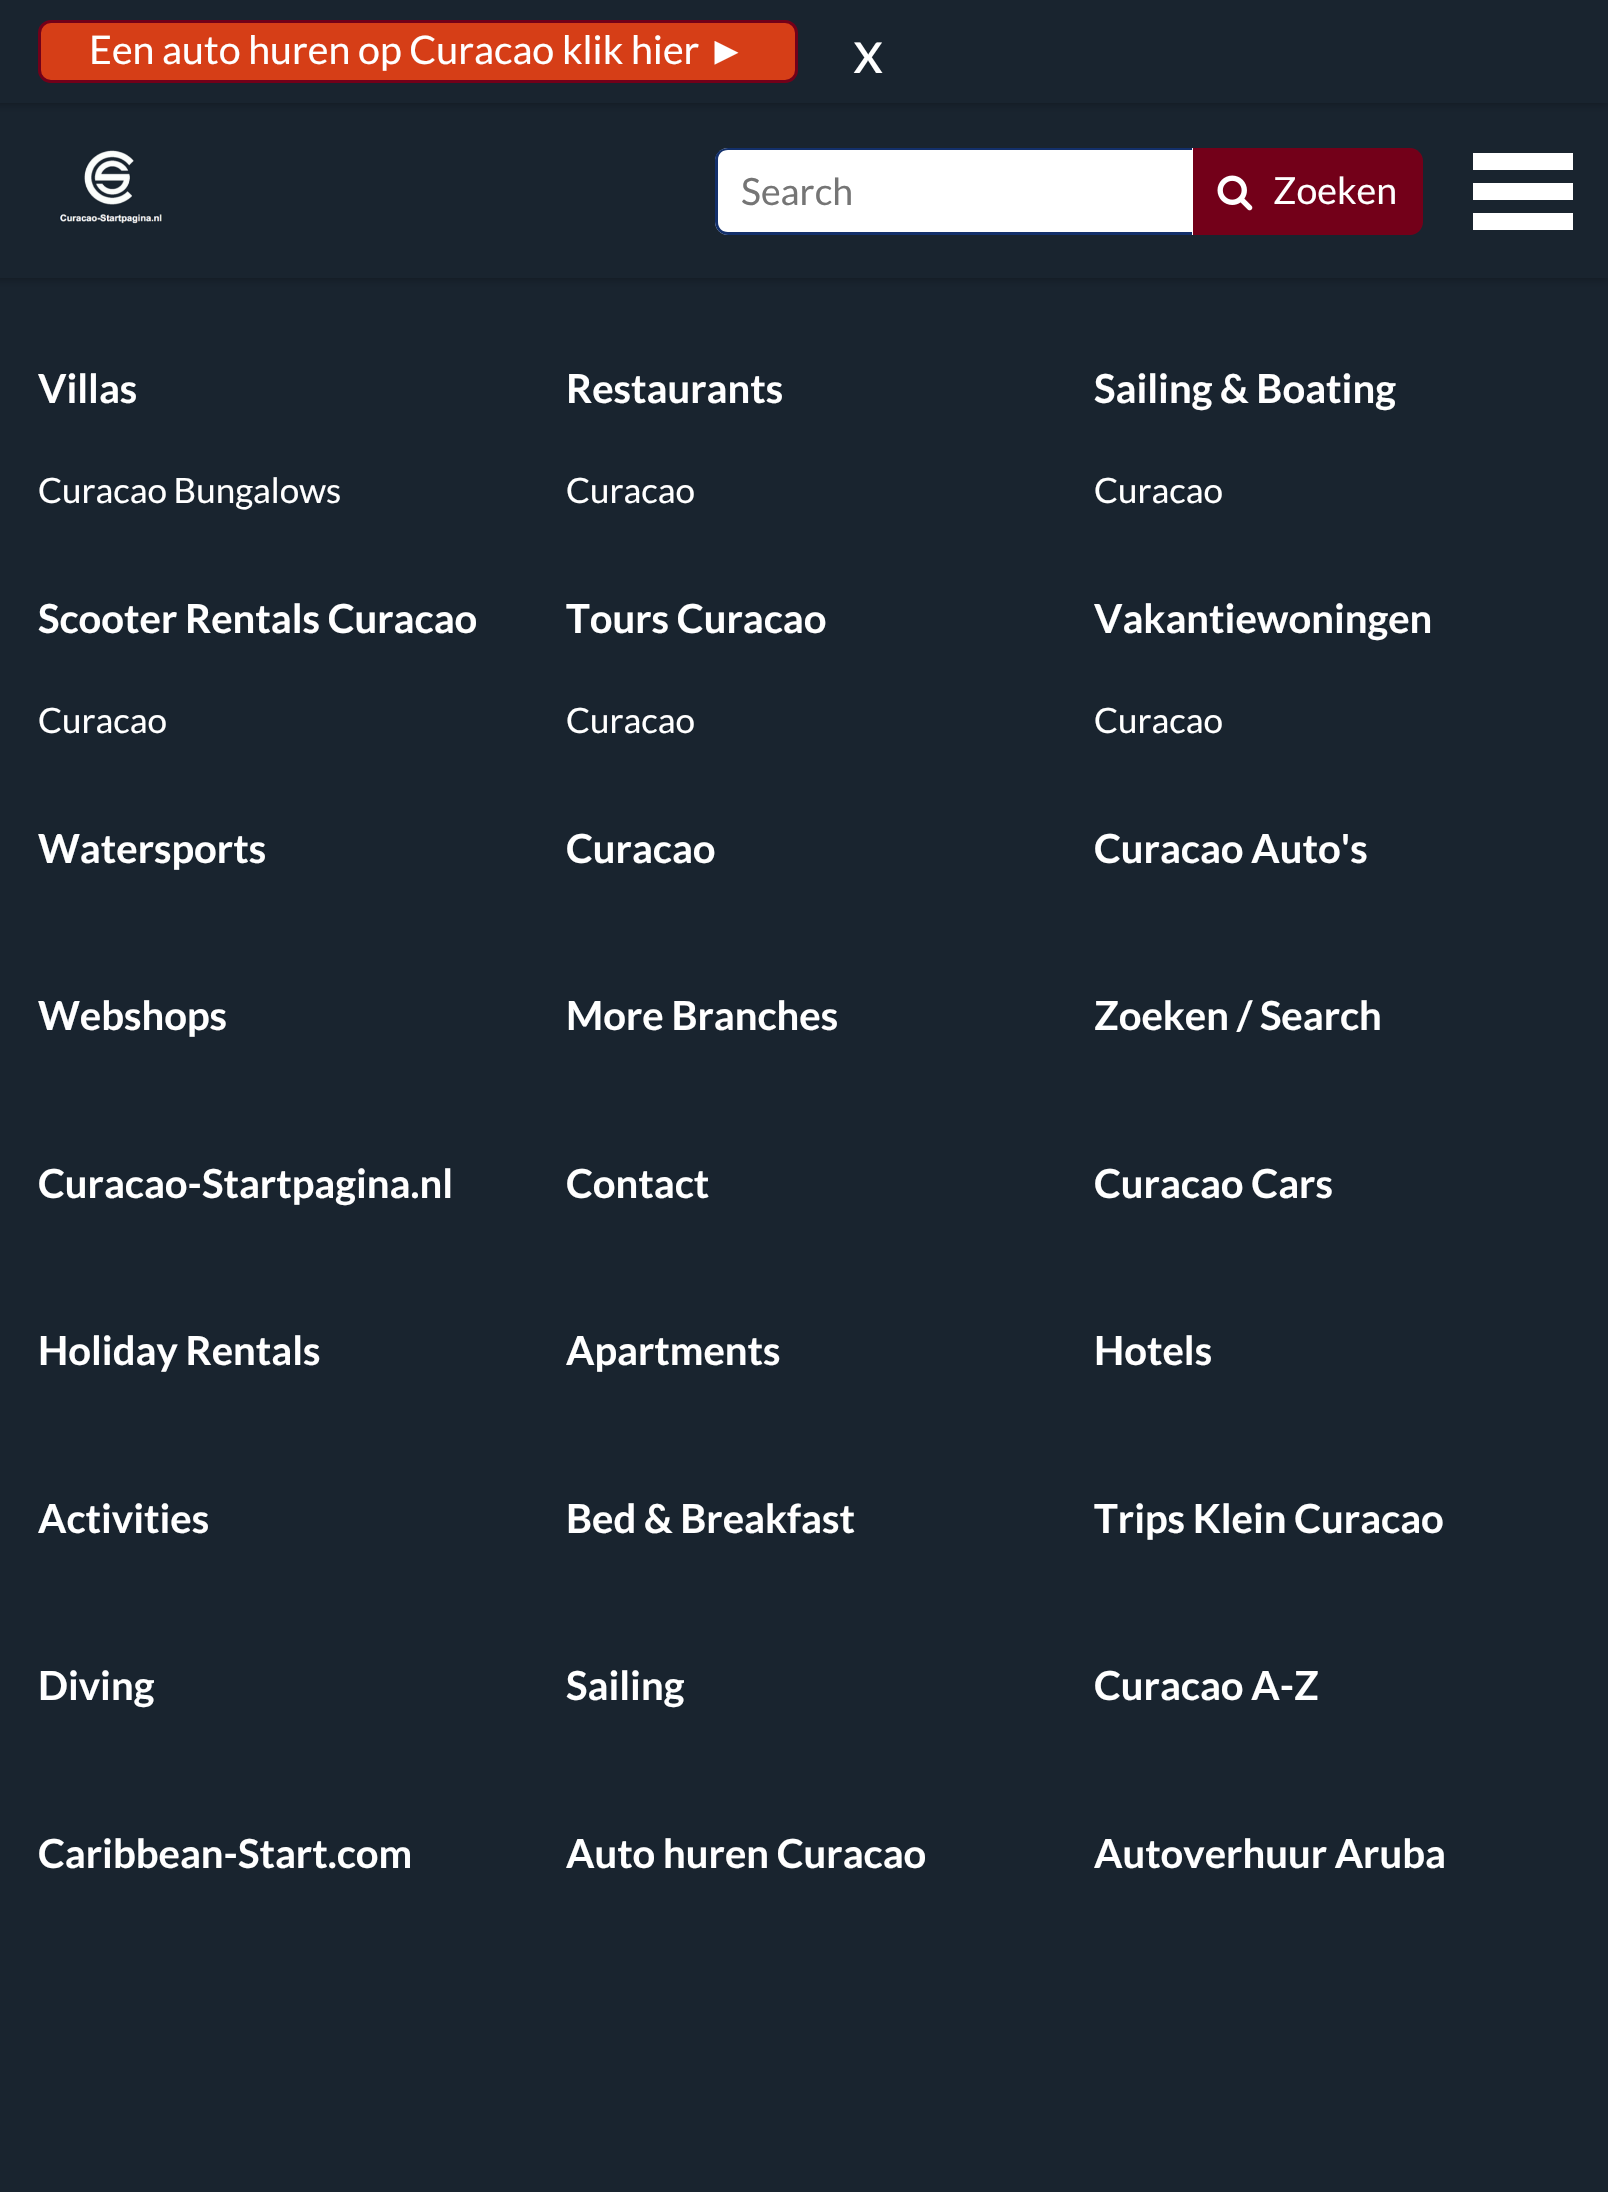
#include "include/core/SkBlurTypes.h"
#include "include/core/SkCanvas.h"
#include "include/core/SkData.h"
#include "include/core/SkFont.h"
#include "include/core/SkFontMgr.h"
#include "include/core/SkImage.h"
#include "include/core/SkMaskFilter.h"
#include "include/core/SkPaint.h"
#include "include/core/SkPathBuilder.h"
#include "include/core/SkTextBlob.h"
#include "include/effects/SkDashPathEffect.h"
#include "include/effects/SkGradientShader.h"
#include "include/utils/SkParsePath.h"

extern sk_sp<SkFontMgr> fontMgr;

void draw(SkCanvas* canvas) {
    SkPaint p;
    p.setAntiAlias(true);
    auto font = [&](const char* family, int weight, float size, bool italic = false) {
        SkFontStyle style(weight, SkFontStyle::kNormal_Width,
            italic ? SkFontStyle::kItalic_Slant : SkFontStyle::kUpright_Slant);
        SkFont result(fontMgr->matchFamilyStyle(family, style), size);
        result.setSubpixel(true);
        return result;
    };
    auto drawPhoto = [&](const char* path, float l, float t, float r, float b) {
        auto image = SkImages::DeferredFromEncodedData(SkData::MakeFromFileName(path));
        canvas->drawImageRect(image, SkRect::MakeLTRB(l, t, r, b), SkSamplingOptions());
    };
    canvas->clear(0xFF19242F);
    p.setColor(0x40000000);
    p.setMaskFilter(SkMaskFilter::MakeBlur(kNormal_SkBlurStyle, 4));
    canvas->drawRect(SkRect::MakeLTRB(-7, 100, 1608, 280), p);
    p.setMaskFilter(nullptr);
    p.setColor(0xFF19242F);
    canvas->drawRect(SkRect::MakeLTRB(0, 103, 1608, 278), p);
    p.setColor(0x40000000);
    p.setMaskFilter(SkMaskFilter::MakeBlur(kNormal_SkBlurStyle, 4));
    canvas->drawRect(SkRect::MakeLTRB(-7, -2, 1608, 105), p);
    p.setMaskFilter(nullptr);
    p.setColor(0xFF19242F);
    canvas->drawRect(SkRect::MakeLTRB(0, 0, 1608, 103), p);
    p.setColor(0xFFD63E17);
    canvas->drawRoundRect(SkRect::MakeLTRB(39.5f, 21.5f, 796.5f, 81.5f), 11.5f, 11.5f, p);
    p.setStyle(SkPaint::kStroke_Style);
    p.setStrokeWidth(3);
    p.setColor(0xFF730019);
    canvas->drawRoundRect(SkRect::MakeLTRB(39.5f, 21.5f, 796.5f, 81.5f), 11.5f, 11.5f, p);
    auto font1 = font("Lato", 400, 39.4f);
    p.setStyle(SkPaint::kFill_Style);
    p.setColor(0xFFFFFFFF);
    canvas->drawString("Een auto huren op Curacao klik hier", 89, 64, font1, p);
    auto font2 = font("Liberation Sans", 400, 39.4f);
    canvas->drawString("►", 707, 64, font2, p);
    auto font3 = font("Lato", 400, 60);
    canvas->drawString("x", 853, 73, font3, p);
    drawPhoto("media/1.png", 59, 150, 163, 224);
    canvas->drawPath(SkPathBuilder().moveTo(728, 148).lineTo(1193, 148).lineTo(1193, 235).lineTo(728, 235).cubicTo(721, 235, 715, 229, 715, 222).lineTo(715, 161).cubicTo(715, 154, 721, 148, 728, 148).close().detach(), p);
    p.setColor(0xFF13306B);
    canvas->drawPath(SkPathBuilder(SkPathFillType::kEvenOdd).moveTo(728, 148).lineTo(1192, 148).lineTo(1192, 235).lineTo(728, 235).cubicTo(721, 235, 715, 229, 715, 222).lineTo(715, 160).cubicTo(715, 153, 721, 148, 728, 148).close().moveTo(728, 150).lineTo(1192, 150).lineTo(1192, 232).lineTo(728, 232).cubicTo(722, 232, 718, 228, 718, 222).lineTo(718, 160).cubicTo(718, 154, 722, 150, 728, 150).close().detach(), p);
    auto font4 = font("Lato", 400, 37.5f);
    p.setColor(0xFF757575);
    canvas->drawString("Search", 741, 205, font4, p);
    p.setColor(0xFF730019);
    canvas->drawPath(SkPathBuilder().moveTo(1193, 148).lineTo(1410, 148).cubicTo(1417, 148, 1423, 154, 1423, 161).lineTo(1423, 222).cubicTo(1423, 229, 1417, 235, 1410, 235).lineTo(1193, 235).close().detach(), p);
    drawPhoto("media/2.png", 1217, 175, 1253, 211);
    p.setColor(0xFFFFFFFF);
    canvas->drawString("Zoeken", 1273, 204, font4, p);
    {
        const struct { float l, t, r, b; SkColor color; } items[] = {
            {1473, 153, 1573, 170, 0xFFFFFFFF},
            {1473, 183, 1573, 200, 0xFFFFFFFF},
            {1473, 213, 1573, 230, 0xFFFFFFFF},
        };
        for (auto [l, t, r, b, color] : items) {
            p.setColor(color);
            canvas->drawRect(SkRect::MakeLTRB(l, t, r, b), p);
        }
    }
    auto font5 = font("Lato", 700, 40);
    canvas->drawString("Villas", 38, 403, font5, p);
    auto font6 = font("Lato", 400, 35);
    canvas->drawString("Curacao Bungalows", 38, 503, font6, p);
    canvas->drawString("Restaurants", 566, 403, font5, p);
    canvas->drawString("Curacao", 566, 503, font6, p);
    canvas->drawString("Sailing & Boating", 1094, 403, font5, p);
    canvas->drawString("Curacao", 1094, 503, font6, p);
    canvas->drawString("Scooter Rentals Curacao", 38, 633, font5, p);
    canvas->drawString("Curacao", 38, 733, font6, p);
    canvas->drawString("Tours Curacao", 566, 633, font5, p);
    canvas->drawString("Curacao", 566, 733, font6, p);
    canvas->drawString("Vakantiewoningen", 1094, 633, font5, p);
    canvas->drawString("Curacao", 1094, 733, font6, p);
    {
        const struct { const char* s; float x, y; } items[] = {
            {"Watersports", 38, 863},
            {"Curacao", 566, 863},
            {"Curacao Auto's", 1094, 863},
            {"Webshops", 38, 1030},
            {"More Branches", 566, 1030},
            {"Zoeken / Search", 1094, 1030},
            {"Curacao-Startpagina.nl", 38, 1198},
            {"Contact", 566, 1198},
            {"Curacao Cars", 1094, 1198},
            {"Holiday Rentals", 38, 1365},
            {"Apartments", 566, 1365},
            {"Hotels", 1094, 1365},
            {"Activities", 38, 1533},
            {"Bed & Breakfast", 566, 1533},
            {"Trips Klein Curacao", 1094, 1533},
            {"Diving", 38, 1700},
            {"Sailing", 566, 1700},
            {"Curacao A-Z", 1094, 1700},
            {"Caribbean-Start.com", 38, 1868},
            {"Auto huren Curacao", 566, 1868},
            {"Autoverhuur Aruba", 1094, 1868},
        };
        for (auto [s, x, y] : items) {
            canvas->drawString(s, x, y, font5, p);
        }
    }
}
